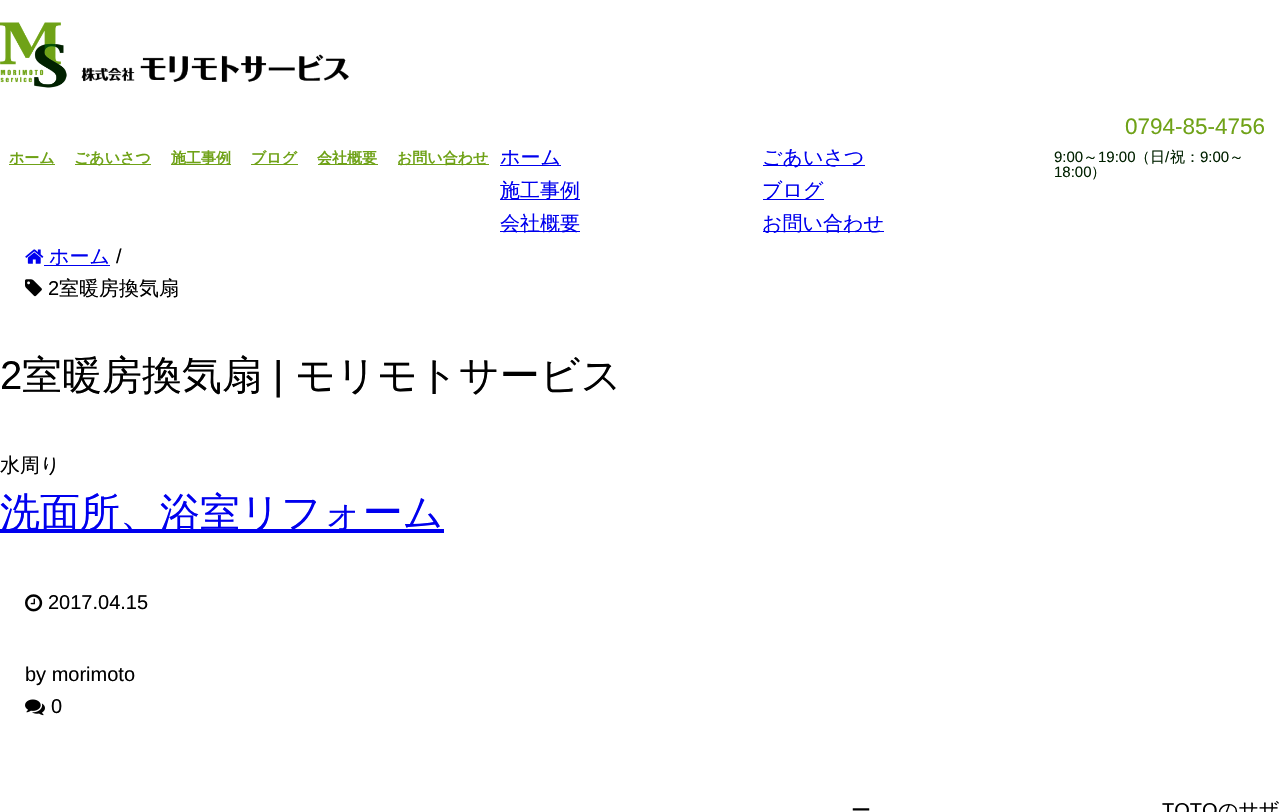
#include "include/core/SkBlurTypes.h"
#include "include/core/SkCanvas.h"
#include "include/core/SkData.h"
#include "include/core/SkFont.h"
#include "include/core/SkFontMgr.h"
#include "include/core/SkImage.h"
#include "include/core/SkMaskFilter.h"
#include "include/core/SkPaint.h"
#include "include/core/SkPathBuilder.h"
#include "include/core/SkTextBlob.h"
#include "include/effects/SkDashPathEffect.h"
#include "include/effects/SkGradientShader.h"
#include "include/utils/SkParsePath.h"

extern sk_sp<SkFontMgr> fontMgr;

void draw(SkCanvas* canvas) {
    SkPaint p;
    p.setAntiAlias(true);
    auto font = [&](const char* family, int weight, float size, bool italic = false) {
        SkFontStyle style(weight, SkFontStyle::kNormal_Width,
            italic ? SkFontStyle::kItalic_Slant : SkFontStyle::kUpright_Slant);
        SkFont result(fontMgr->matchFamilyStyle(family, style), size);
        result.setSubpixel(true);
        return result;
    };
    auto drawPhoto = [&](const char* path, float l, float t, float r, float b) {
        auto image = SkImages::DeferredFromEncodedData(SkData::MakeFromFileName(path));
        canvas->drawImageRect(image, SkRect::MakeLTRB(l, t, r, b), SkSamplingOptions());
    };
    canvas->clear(0xFFFFFFFF);
    drawPhoto("media/1.png", 0, 22, 349, 88);
    p.setColor(0xFF6FA217);
    canvas->drawRect(SkRect::MakeLTRB(9, 164, 55, 165), p);
    auto font1 = font("WenQuanYi Zen Hei", 700, 15);
    canvas->drawString("ホーム", 9, 163, font1, p);
    canvas->drawRect(SkRect::MakeLTRB(75, 164, 151, 165), p);
    canvas->drawString("ごあいさつ", 74, 163, font1, p);
    canvas->drawRect(SkRect::MakeLTRB(171, 164, 231, 165), p);
    canvas->drawString("施工事例", 171, 163, font1, p);
    canvas->drawRect(SkRect::MakeLTRB(251, 164, 298, 165), p);
    canvas->drawString("ブログ", 251, 163, font1, p);
    canvas->drawRect(SkRect::MakeLTRB(318, 164, 378, 165), p);
    canvas->drawString("会社概要", 317, 163, font1, p);
    canvas->drawRect(SkRect::MakeLTRB(398, 164, 489, 165), p);
    canvas->drawString("お問い合わせ", 397, 163, font1, p);
    auto font2 = font("Liberation Sans", 400, 22.5f);
    canvas->drawString("0794-85-4756", 1125, 134, font2, p);
    auto font3 = font("Liberation Sans", 400, 15);
    p.setColor(0xFF012100);
    canvas->drawString("9:00", 1054, 162, font3, p);
    auto font4 = font("WenQuanYi Zen Hei", 500, 15);
    canvas->drawString("～", 1083, 162, font4, p);
    canvas->drawString("19:00", 1098, 162, font3, p);
    canvas->drawString("（日", 1135, 162, font4, p);
    canvas->drawString("/", 1165, 162, font3, p);
    canvas->drawString("祝：", 1170, 162, font4, p);
    canvas->drawString("9:00", 1200, 162, font3, p);
    canvas->drawString("～", 1229, 162, font4, p);
    canvas->drawString("18:00", 1054, 177, font3, p);
    canvas->drawString("）", 1091, 177, font4, p);
    p.setColor(0xFF0000EE);
    canvas->drawRect(SkRect::MakeLTRB(500, 165, 561, 166), p);
    auto font5 = font("WenQuanYi Zen Hei", 500, 20);
    canvas->drawString("ホーム", 500, 164, font5, p);
    canvas->drawRect(SkRect::MakeLTRB(763, 165, 865, 166), p);
    canvas->drawString("ごあいさつ", 762, 164, font5, p);
    canvas->drawRect(SkRect::MakeLTRB(500, 199, 580, 200), p);
    canvas->drawString("施工事例", 500, 197, font5, p);
    canvas->drawRect(SkRect::MakeLTRB(763, 199, 824, 200), p);
    canvas->drawString("ブログ", 762, 197, font5, p);
    canvas->drawRect(SkRect::MakeLTRB(500, 231, 580, 232), p);
    canvas->drawString("会社概要", 500, 230, font5, p);
    canvas->drawRect(SkRect::MakeLTRB(763, 231, 884, 232), p);
    canvas->drawString("お問い合わせ", 762, 230, font5, p);
    drawPhoto("media/2.png", 25, 249, 44, 264);
    canvas->drawRect(SkRect::MakeLTRB(44, 265, 110, 266), p);
    canvas->drawString("ホーム", 49, 263, font5, p);
    auto font6 = font("Liberation Sans", 400, 20);
    p.setColor(0xFF000000);
    canvas->drawString("/", 116, 263, font6, p);
    drawPhoto("media/3.png", 25, 279, 42, 297);
    canvas->drawString("2", 48, 295, font6, p);
    canvas->drawString("室暖房換気扇", 59, 295, font5, p);
    auto font7 = font("Liberation Sans", 400, 40);
    canvas->drawString("2", 0, 389, font7, p);
    auto font8 = font("WenQuanYi Zen Hei", 500, 40);
    canvas->drawString("室暖房換気扇", 22, 389, font8, p);
    canvas->drawString("|", 273, 389, font7, p);
    canvas->drawString("モリモトサービス", 295, 389, font8, p);
    canvas->drawString("水周り", 0, 472, font5, p);
    p.setColor(0xFF0000EE);
    canvas->drawRect(SkRect::MakeLTRB(0, 529, 444, 533), p);
    canvas->drawString("洗面所、浴室リフォーム", 0, 526, font8, p);
    drawPhoto("media/4.png", 25, 594, 43, 612);
    p.setColor(0xFF000000);
    canvas->drawString("2017.04.15", 48, 609, font6, p);
    canvas->drawString("by morimoto", 25, 681, font6, p);
    drawPhoto("media/5.png", 25, 699, 45, 716);
    canvas->drawString("0", 51, 713, font6, p);
    canvas->drawString("ー", 851, 817, font5, p);
    canvas->drawString("TOTO", 1162, 817, font6, p);
    canvas->drawString("のサザ", 1218, 817, font5, p);
}
